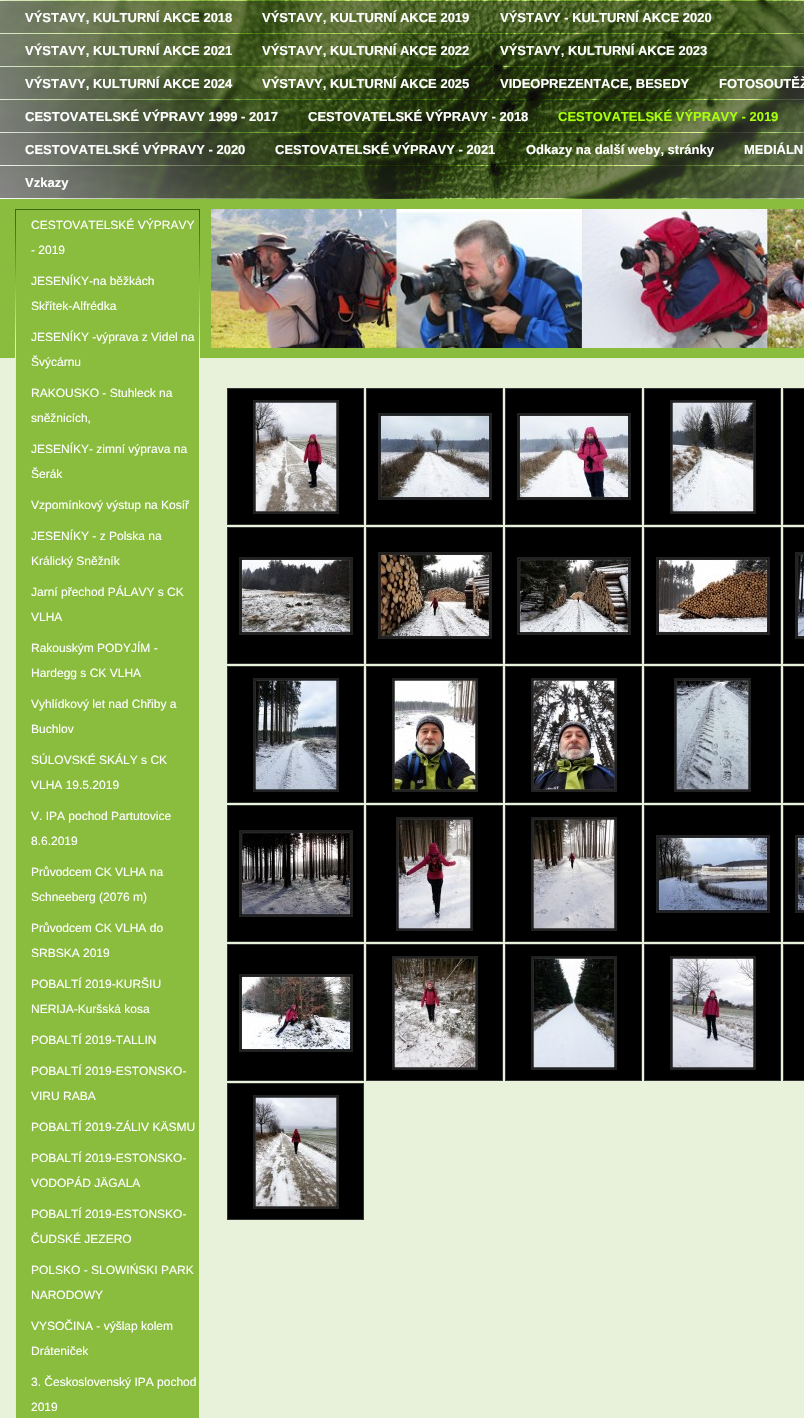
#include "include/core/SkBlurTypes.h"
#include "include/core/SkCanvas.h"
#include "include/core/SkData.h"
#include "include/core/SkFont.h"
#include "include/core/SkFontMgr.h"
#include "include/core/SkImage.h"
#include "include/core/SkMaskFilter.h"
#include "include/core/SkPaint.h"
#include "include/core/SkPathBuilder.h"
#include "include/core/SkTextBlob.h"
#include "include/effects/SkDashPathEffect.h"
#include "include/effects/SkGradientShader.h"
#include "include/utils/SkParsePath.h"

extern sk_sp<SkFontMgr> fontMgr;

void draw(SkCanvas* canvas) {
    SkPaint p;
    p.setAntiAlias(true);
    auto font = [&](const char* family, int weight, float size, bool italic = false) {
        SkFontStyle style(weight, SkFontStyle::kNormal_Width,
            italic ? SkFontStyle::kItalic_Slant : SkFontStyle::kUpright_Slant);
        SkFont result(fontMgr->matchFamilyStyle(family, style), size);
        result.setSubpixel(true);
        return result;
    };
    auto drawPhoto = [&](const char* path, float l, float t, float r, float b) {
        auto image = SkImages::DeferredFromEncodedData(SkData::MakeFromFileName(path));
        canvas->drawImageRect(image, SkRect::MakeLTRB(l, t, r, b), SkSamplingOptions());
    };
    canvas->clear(0xFFFFFFFF);
    drawPhoto("media/1.png", 0, 0, 804, 199);
    auto font1 = font("Liberation Sans", 700, 13);
    p.setColor(0xFFFFFFFF);
    {
        const struct { const char* s; float x, y; } items[] = {
            {"VÝSTAVY‚ KULTURNÍ AKCE 2018", 25, 22},
            {"VÝSTAVY‚ KULTURNÍ AKCE 2019", 262, 22},
            {"VÝSTAVY - KULTURNÍ AKCE 2020", 500, 22},
            {"VÝSTAVY‚ KULTURNÍ AKCE 2021", 25, 55},
            {"VÝSTAVY‚ KULTURNÍ AKCE 2022", 262, 55},
            {"VÝSTAVY‚ KULTURNÍ AKCE 2023", 500, 55},
            {"VÝSTAVY‚ KULTURNÍ AKCE 2024", 25, 88},
            {"VÝSTAVY‚ KULTURNÍ AKCE 2025", 262, 88},
            {"VIDEOPREZENTACE‚ BESEDY", 500, 88},
            {"FOTOSOUTĚŽ", 719, 88},
            {"CESTOVATELSKÉ VÝPRAVY 1999 - 2017", 25, 121},
            {"CESTOVATELSKÉ VÝPRAVY - 2018", 308, 121},
        };
        for (auto [s, x, y] : items) {
            canvas->drawString(s, x, y, font1, p);
        }
    }
    p.setColor(0xFFA7FF0E);
    canvas->drawString("CESTOVATELSKÉ VÝPRAVY - 2019", 558, 121, font1, p);
    p.setColor(0xFFFFFFFF);
    {
        const struct { const char* s; float x, y; } items[] = {
            {"CESTOVATELSKÉ VÝPRAVY - 2020", 25, 154},
            {"CESTOVATELSKÉ VÝPRAVY - 2021", 275, 154},
            {"Odkazy na další weby‚ stránky", 526, 154},
            {"MEDIÁLN", 744, 154},
            {"Vzkazy", 25, 187},
        };
        for (auto [s, x, y] : items) {
            canvas->drawString(s, x, y, font1, p);
        }
    }
    drawPhoto("media/2.png", 0, 358, 804, 1418);
    drawPhoto("media/3.png", 0, 199, 804, 358);
    auto font2 = font("Liberation Sans", 400, 12);
    {
        const struct { const char* s; float x, y; } items[] = {
            {"CESTOVATELSKÉ VÝPRAVY", 31, 229},
            {"- 2019", 31, 254},
            {"JESENÍKY-na běžkách", 31, 285},
            {"Skřítek-Alfrédka", 31, 310},
            {"JESENÍKY -výprava z Videl na", 31, 341},
            {"Švýcárnu", 31, 366},
            {"RAKOUSKO - Stuhleck na", 31, 397},
            {"sněžnicích‚", 31, 422},
            {"JESENÍKY- zimní výprava na", 31, 453},
            {"Šerák", 31, 478},
            {"Vzpomínkový výstup na Kosíř", 31, 509},
            {"JESENÍKY - z Polska na", 31, 540},
            {"Králický Sněžník", 31, 565},
            {"Jarní přechod PÁLAVY s CK", 31, 596},
            {"VLHA", 31, 621},
            {"Rakouským PODYJÍM -", 31, 652},
            {"Hardegg s CK VLHA", 31, 677},
            {"Vyhlídkový let nad Chřiby a", 31, 708},
            {"Buchlov", 31, 733},
            {"SÚLOVSKÉ SKÁLY s CK", 31, 764},
            {"VLHA 19.5.2019", 31, 789},
            {"V. IPA pochod Partutovice", 31, 820},
            {"8.6.2019", 31, 845},
            {"Průvodcem CK VLHA na", 31, 876},
            {"Schneeberg (2076 m)", 31, 901},
            {"Průvodcem CK VLHA do", 31, 932},
            {"SRBSKA 2019", 31, 957},
            {"POBALTÍ 2019-KURŠIU", 31, 988},
            {"NERIJA-Kuršská kosa", 31, 1013},
            {"POBALTÍ 2019-TALLIN", 31, 1044},
            {"POBALTÍ 2019-ESTONSKO-", 31, 1075},
            {"VIRU RABA", 31, 1100},
            {"POBALTÍ 2019-ZÁLIV KÄSMU", 31, 1131},
            {"POBALTÍ 2019-ESTONSKO-", 31, 1162},
            {"VODOPÁD JÄGALA", 31, 1187},
            {"POBALTÍ 2019-ESTONSKO-", 31, 1218},
            {"ČUDSKÉ JEZERO", 31, 1243},
            {"POLSKO - SLOWIŃSKI PARK", 31, 1274},
            {"NARODOWY", 31, 1299},
            {"VYSOČINA - výšlap kolem", 31, 1330},
            {"Dráteniček", 31, 1355},
            {"3. Československý IPA pochod", 31, 1386},
            {"2019", 31, 1411},
        };
        for (auto [s, x, y] : items) {
            canvas->drawString(s, x, y, font2, p);
        }
    }
    drawPhoto("media/4.png", 211, 209, 804, 348);
    p.setColor(0xFF000000);
    canvas->drawRect(SkRect::MakeLTRB(227.5f, 388.5f, 363.5f, 524.5f), p);
    p.setStyle(SkPaint::kStroke_Style);
    p.setStrokeWidth(1);
    p.setColor(0xFF333333);
    canvas->drawRect(SkRect::MakeLTRB(227.5f, 388.5f, 363.5f, 524.5f), p);
    p.setStrokeWidth(2);
    p.setColor(0xFF222222);
    canvas->drawRect(SkRect::MakeLTRB(254, 401, 338, 513), p);
    drawPhoto("media/5.png", 255, 402, 337, 512);
    p.setStyle(SkPaint::kFill_Style);
    p.setColor(0xFF000000);
    canvas->drawRect(SkRect::MakeLTRB(366.5f, 388.5f, 502.5f, 524.5f), p);
    p.setStyle(SkPaint::kStroke_Style);
    p.setStrokeWidth(1);
    p.setColor(0xFF333333);
    canvas->drawRect(SkRect::MakeLTRB(366.5f, 388.5f, 502.5f, 524.5f), p);
    p.setStrokeWidth(2);
    p.setColor(0xFF222222);
    canvas->drawRect(SkRect::MakeLTRB(379, 414, 491, 499), p);
    drawPhoto("media/6.png", 380, 415, 490, 498);
    p.setStyle(SkPaint::kFill_Style);
    p.setColor(0xFF000000);
    canvas->drawRect(SkRect::MakeLTRB(505.5f, 388.5f, 641.5f, 524.5f), p);
    p.setStyle(SkPaint::kStroke_Style);
    p.setStrokeWidth(1);
    p.setColor(0xFF333333);
    canvas->drawRect(SkRect::MakeLTRB(505.5f, 388.5f, 641.5f, 524.5f), p);
    p.setStrokeWidth(2);
    p.setColor(0xFF222222);
    canvas->drawRect(SkRect::MakeLTRB(518, 414, 630, 499), p);
    drawPhoto("media/7.png", 519, 415, 629, 498);
    p.setStyle(SkPaint::kFill_Style);
    p.setColor(0xFF000000);
    canvas->drawRect(SkRect::MakeLTRB(644.5f, 388.5f, 780.5f, 524.5f), p);
    p.setStyle(SkPaint::kStroke_Style);
    p.setStrokeWidth(1);
    p.setColor(0xFF333333);
    canvas->drawRect(SkRect::MakeLTRB(644.5f, 388.5f, 780.5f, 524.5f), p);
    p.setStrokeWidth(2);
    p.setColor(0xFF222222);
    canvas->drawRect(SkRect::MakeLTRB(671, 401, 755, 513), p);
    drawPhoto("media/8.png", 672, 402, 754, 512);
    p.setStyle(SkPaint::kFill_Style);
    p.setColor(0xFF000000);
    canvas->drawRect(SkRect::MakeLTRB(783.5f, 388.5f, 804.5f, 524.5f), p);
    p.setStyle(SkPaint::kStroke_Style);
    p.setStrokeWidth(1);
    p.setColor(0xFF333333);
    canvas->drawRect(SkRect::MakeLTRB(783.5f, 388.5f, 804.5f, 524.5f), p);
    p.setStyle(SkPaint::kFill_Style);
    p.setColor(0xFF000000);
    canvas->drawRect(SkRect::MakeLTRB(227.5f, 527.5f, 363.5f, 663.5f), p);
    p.setStyle(SkPaint::kStroke_Style);
    p.setColor(0xFF333333);
    canvas->drawRect(SkRect::MakeLTRB(227.5f, 527.5f, 363.5f, 663.5f), p);
    p.setStrokeWidth(2);
    p.setColor(0xFF222222);
    canvas->drawRect(SkRect::MakeLTRB(240, 558, 352, 634), p);
    drawPhoto("media/9.png", 241, 559, 351, 633);
    p.setStyle(SkPaint::kFill_Style);
    p.setColor(0xFF000000);
    canvas->drawRect(SkRect::MakeLTRB(366.5f, 527.5f, 502.5f, 663.5f), p);
    p.setStyle(SkPaint::kStroke_Style);
    p.setStrokeWidth(1);
    p.setColor(0xFF333333);
    canvas->drawRect(SkRect::MakeLTRB(366.5f, 527.5f, 502.5f, 663.5f), p);
    p.setStrokeWidth(2);
    p.setColor(0xFF222222);
    canvas->drawRect(SkRect::MakeLTRB(379, 553, 491, 638), p);
    drawPhoto("media/10.png", 380, 554, 490, 637);
    p.setStyle(SkPaint::kFill_Style);
    p.setColor(0xFF000000);
    canvas->drawRect(SkRect::MakeLTRB(505.5f, 527.5f, 641.5f, 663.5f), p);
    p.setStyle(SkPaint::kStroke_Style);
    p.setStrokeWidth(1);
    p.setColor(0xFF333333);
    canvas->drawRect(SkRect::MakeLTRB(505.5f, 527.5f, 641.5f, 663.5f), p);
    p.setStrokeWidth(2);
    p.setColor(0xFF222222);
    canvas->drawRect(SkRect::MakeLTRB(518, 558, 630, 634), p);
    drawPhoto("media/11.png", 519, 559, 629, 633);
    p.setStyle(SkPaint::kFill_Style);
    p.setColor(0xFF000000);
    canvas->drawRect(SkRect::MakeLTRB(644.5f, 527.5f, 780.5f, 663.5f), p);
    p.setStyle(SkPaint::kStroke_Style);
    p.setStrokeWidth(1);
    p.setColor(0xFF333333);
    canvas->drawRect(SkRect::MakeLTRB(644.5f, 527.5f, 780.5f, 663.5f), p);
    p.setStrokeWidth(2);
    p.setColor(0xFF222222);
    canvas->drawRect(SkRect::MakeLTRB(657, 558, 769, 634), p);
    drawPhoto("media/12.png", 658, 559, 768, 633);
    p.setStyle(SkPaint::kFill_Style);
    p.setColor(0xFF000000);
    canvas->drawRect(SkRect::MakeLTRB(783.5f, 527.5f, 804.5f, 663.5f), p);
    p.setStyle(SkPaint::kStroke_Style);
    p.setStrokeWidth(1);
    p.setColor(0xFF333333);
    canvas->drawRect(SkRect::MakeLTRB(783.5f, 527.5f, 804.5f, 663.5f), p);
    p.setStrokeWidth(2);
    p.setColor(0xFF222222);
    canvas->drawRect(SkRect::MakeLTRB(796, 553, 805, 638), p);
    drawPhoto("media/13.png", 797, 554, 804, 637);
    p.setStyle(SkPaint::kFill_Style);
    p.setColor(0xFF000000);
    canvas->drawRect(SkRect::MakeLTRB(227.5f, 666.5f, 363.5f, 802.5f), p);
    p.setStyle(SkPaint::kStroke_Style);
    p.setStrokeWidth(1);
    p.setColor(0xFF333333);
    canvas->drawRect(SkRect::MakeLTRB(227.5f, 666.5f, 363.5f, 802.5f), p);
    p.setStrokeWidth(2);
    p.setColor(0xFF222222);
    canvas->drawRect(SkRect::MakeLTRB(254, 679, 338, 791), p);
    drawPhoto("media/14.png", 255, 680, 337, 790);
    p.setStyle(SkPaint::kFill_Style);
    p.setColor(0xFF000000);
    canvas->drawRect(SkRect::MakeLTRB(366.5f, 666.5f, 502.5f, 802.5f), p);
    p.setStyle(SkPaint::kStroke_Style);
    p.setStrokeWidth(1);
    p.setColor(0xFF333333);
    canvas->drawRect(SkRect::MakeLTRB(366.5f, 666.5f, 502.5f, 802.5f), p);
    p.setStrokeWidth(2);
    p.setColor(0xFF222222);
    canvas->drawRect(SkRect::MakeLTRB(393, 679, 477, 791), p);
    drawPhoto("media/15.png", 394, 680, 476, 790);
    p.setStyle(SkPaint::kFill_Style);
    p.setColor(0xFF000000);
    canvas->drawRect(SkRect::MakeLTRB(505.5f, 666.5f, 641.5f, 802.5f), p);
    p.setStyle(SkPaint::kStroke_Style);
    p.setStrokeWidth(1);
    p.setColor(0xFF333333);
    canvas->drawRect(SkRect::MakeLTRB(505.5f, 666.5f, 641.5f, 802.5f), p);
    p.setStrokeWidth(2);
    p.setColor(0xFF222222);
    canvas->drawRect(SkRect::MakeLTRB(532, 679, 616, 791), p);
    drawPhoto("media/16.png", 533, 680, 615, 790);
    p.setStyle(SkPaint::kFill_Style);
    p.setColor(0xFF000000);
    canvas->drawRect(SkRect::MakeLTRB(644.5f, 666.5f, 780.5f, 802.5f), p);
    p.setStyle(SkPaint::kStroke_Style);
    p.setStrokeWidth(1);
    p.setColor(0xFF333333);
    canvas->drawRect(SkRect::MakeLTRB(644.5f, 666.5f, 780.5f, 802.5f), p);
    p.setStrokeWidth(2);
    p.setColor(0xFF222222);
    canvas->drawRect(SkRect::MakeLTRB(675, 679, 750, 791), p);
    drawPhoto("media/17.png", 676, 680, 749, 790);
    p.setStyle(SkPaint::kFill_Style);
    p.setColor(0xFF000000);
    canvas->drawRect(SkRect::MakeLTRB(783.5f, 666.5f, 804.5f, 802.5f), p);
    p.setStyle(SkPaint::kStroke_Style);
    p.setStrokeWidth(1);
    p.setColor(0xFF333333);
    canvas->drawRect(SkRect::MakeLTRB(783.5f, 666.5f, 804.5f, 802.5f), p);
    p.setStyle(SkPaint::kFill_Style);
    p.setColor(0xFF000000);
    canvas->drawRect(SkRect::MakeLTRB(227.5f, 805.5f, 363.5f, 941.5f), p);
    p.setStyle(SkPaint::kStroke_Style);
    p.setColor(0xFF333333);
    canvas->drawRect(SkRect::MakeLTRB(227.5f, 805.5f, 363.5f, 941.5f), p);
    p.setStrokeWidth(2);
    p.setColor(0xFF222222);
    canvas->drawRect(SkRect::MakeLTRB(240, 831, 352, 916), p);
    drawPhoto("media/18.png", 241, 832, 351, 915);
    p.setStyle(SkPaint::kFill_Style);
    p.setColor(0xFF000000);
    canvas->drawRect(SkRect::MakeLTRB(366.5f, 805.5f, 502.5f, 941.5f), p);
    p.setStyle(SkPaint::kStroke_Style);
    p.setStrokeWidth(1);
    p.setColor(0xFF333333);
    canvas->drawRect(SkRect::MakeLTRB(366.5f, 805.5f, 502.5f, 941.5f), p);
    p.setStrokeWidth(2);
    p.setColor(0xFF222222);
    canvas->drawRect(SkRect::MakeLTRB(397, 818, 472, 930), p);
    drawPhoto("media/19.png", 398, 819, 471, 929);
    p.setStyle(SkPaint::kFill_Style);
    p.setColor(0xFF000000);
    canvas->drawRect(SkRect::MakeLTRB(505.5f, 805.5f, 641.5f, 941.5f), p);
    p.setStyle(SkPaint::kStroke_Style);
    p.setStrokeWidth(1);
    p.setColor(0xFF333333);
    canvas->drawRect(SkRect::MakeLTRB(505.5f, 805.5f, 641.5f, 941.5f), p);
    p.setStrokeWidth(2);
    p.setColor(0xFF222222);
    canvas->drawRect(SkRect::MakeLTRB(532, 818, 616, 930), p);
    drawPhoto("media/20.png", 533, 819, 615, 929);
    p.setStyle(SkPaint::kFill_Style);
    p.setColor(0xFF000000);
    canvas->drawRect(SkRect::MakeLTRB(644.5f, 805.5f, 780.5f, 941.5f), p);
    p.setStyle(SkPaint::kStroke_Style);
    p.setStrokeWidth(1);
    p.setColor(0xFF333333);
    canvas->drawRect(SkRect::MakeLTRB(644.5f, 805.5f, 780.5f, 941.5f), p);
    p.setStrokeWidth(2);
    p.setColor(0xFF222222);
    canvas->drawRect(SkRect::MakeLTRB(657, 836, 769, 912), p);
    drawPhoto("media/21.png", 658, 837, 768, 911);
    p.setStyle(SkPaint::kFill_Style);
    p.setColor(0xFF000000);
    canvas->drawRect(SkRect::MakeLTRB(783.5f, 805.5f, 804.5f, 941.5f), p);
    p.setStyle(SkPaint::kStroke_Style);
    p.setStrokeWidth(1);
    p.setColor(0xFF333333);
    canvas->drawRect(SkRect::MakeLTRB(783.5f, 805.5f, 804.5f, 941.5f), p);
    p.setStrokeWidth(2);
    p.setColor(0xFF222222);
    canvas->drawRect(SkRect::MakeLTRB(796, 836, 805, 912), p);
    drawPhoto("media/22.png", 797, 837, 804, 911);
    p.setStyle(SkPaint::kFill_Style);
    p.setColor(0xFF000000);
    canvas->drawRect(SkRect::MakeLTRB(227.5f, 944.5f, 363.5f, 1080.5f), p);
    p.setStyle(SkPaint::kStroke_Style);
    p.setStrokeWidth(1);
    p.setColor(0xFF333333);
    canvas->drawRect(SkRect::MakeLTRB(227.5f, 944.5f, 363.5f, 1080.5f), p);
    p.setStrokeWidth(2);
    p.setColor(0xFF222222);
    canvas->drawRect(SkRect::MakeLTRB(240, 975, 352, 1051), p);
    drawPhoto("media/23.png", 241, 976, 351, 1050);
    p.setStyle(SkPaint::kFill_Style);
    p.setColor(0xFF000000);
    canvas->drawRect(SkRect::MakeLTRB(366.5f, 944.5f, 502.5f, 1080.5f), p);
    p.setStyle(SkPaint::kStroke_Style);
    p.setStrokeWidth(1);
    p.setColor(0xFF333333);
    canvas->drawRect(SkRect::MakeLTRB(366.5f, 944.5f, 502.5f, 1080.5f), p);
    p.setStrokeWidth(2);
    p.setColor(0xFF222222);
    canvas->drawRect(SkRect::MakeLTRB(393, 957, 477, 1069), p);
    drawPhoto("media/24.png", 394, 958, 476, 1068);
    p.setStyle(SkPaint::kFill_Style);
    p.setColor(0xFF000000);
    canvas->drawRect(SkRect::MakeLTRB(505.5f, 944.5f, 641.5f, 1080.5f), p);
    p.setStyle(SkPaint::kStroke_Style);
    p.setStrokeWidth(1);
    p.setColor(0xFF333333);
    canvas->drawRect(SkRect::MakeLTRB(505.5f, 944.5f, 641.5f, 1080.5f), p);
    p.setStrokeWidth(2);
    p.setColor(0xFF222222);
    canvas->drawRect(SkRect::MakeLTRB(532, 957, 616, 1069), p);
    drawPhoto("media/25.png", 533, 958, 615, 1068);
    p.setStyle(SkPaint::kFill_Style);
    p.setColor(0xFF000000);
    canvas->drawRect(SkRect::MakeLTRB(644.5f, 944.5f, 780.5f, 1080.5f), p);
    p.setStyle(SkPaint::kStroke_Style);
    p.setStrokeWidth(1);
    p.setColor(0xFF333333);
    canvas->drawRect(SkRect::MakeLTRB(644.5f, 944.5f, 780.5f, 1080.5f), p);
    p.setStrokeWidth(2);
    p.setColor(0xFF222222);
    canvas->drawRect(SkRect::MakeLTRB(671, 957, 755, 1069), p);
    drawPhoto("media/26.png", 672, 958, 754, 1068);
    p.setStyle(SkPaint::kFill_Style);
    p.setColor(0xFF000000);
    canvas->drawRect(SkRect::MakeLTRB(783.5f, 944.5f, 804.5f, 1080.5f), p);
    p.setStyle(SkPaint::kStroke_Style);
    p.setStrokeWidth(1);
    p.setColor(0xFF333333);
    canvas->drawRect(SkRect::MakeLTRB(783.5f, 944.5f, 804.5f, 1080.5f), p);
    p.setStyle(SkPaint::kFill_Style);
    p.setColor(0xFF000000);
    canvas->drawRect(SkRect::MakeLTRB(227.5f, 1083.5f, 363.5f, 1219.5f), p);
    p.setStyle(SkPaint::kStroke_Style);
    p.setColor(0xFF333333);
    canvas->drawRect(SkRect::MakeLTRB(227.5f, 1083.5f, 363.5f, 1219.5f), p);
    p.setStrokeWidth(2);
    p.setColor(0xFF222222);
    canvas->drawRect(SkRect::MakeLTRB(254, 1096, 338, 1208), p);
    drawPhoto("media/27.png", 255, 1097, 337, 1207);
}
